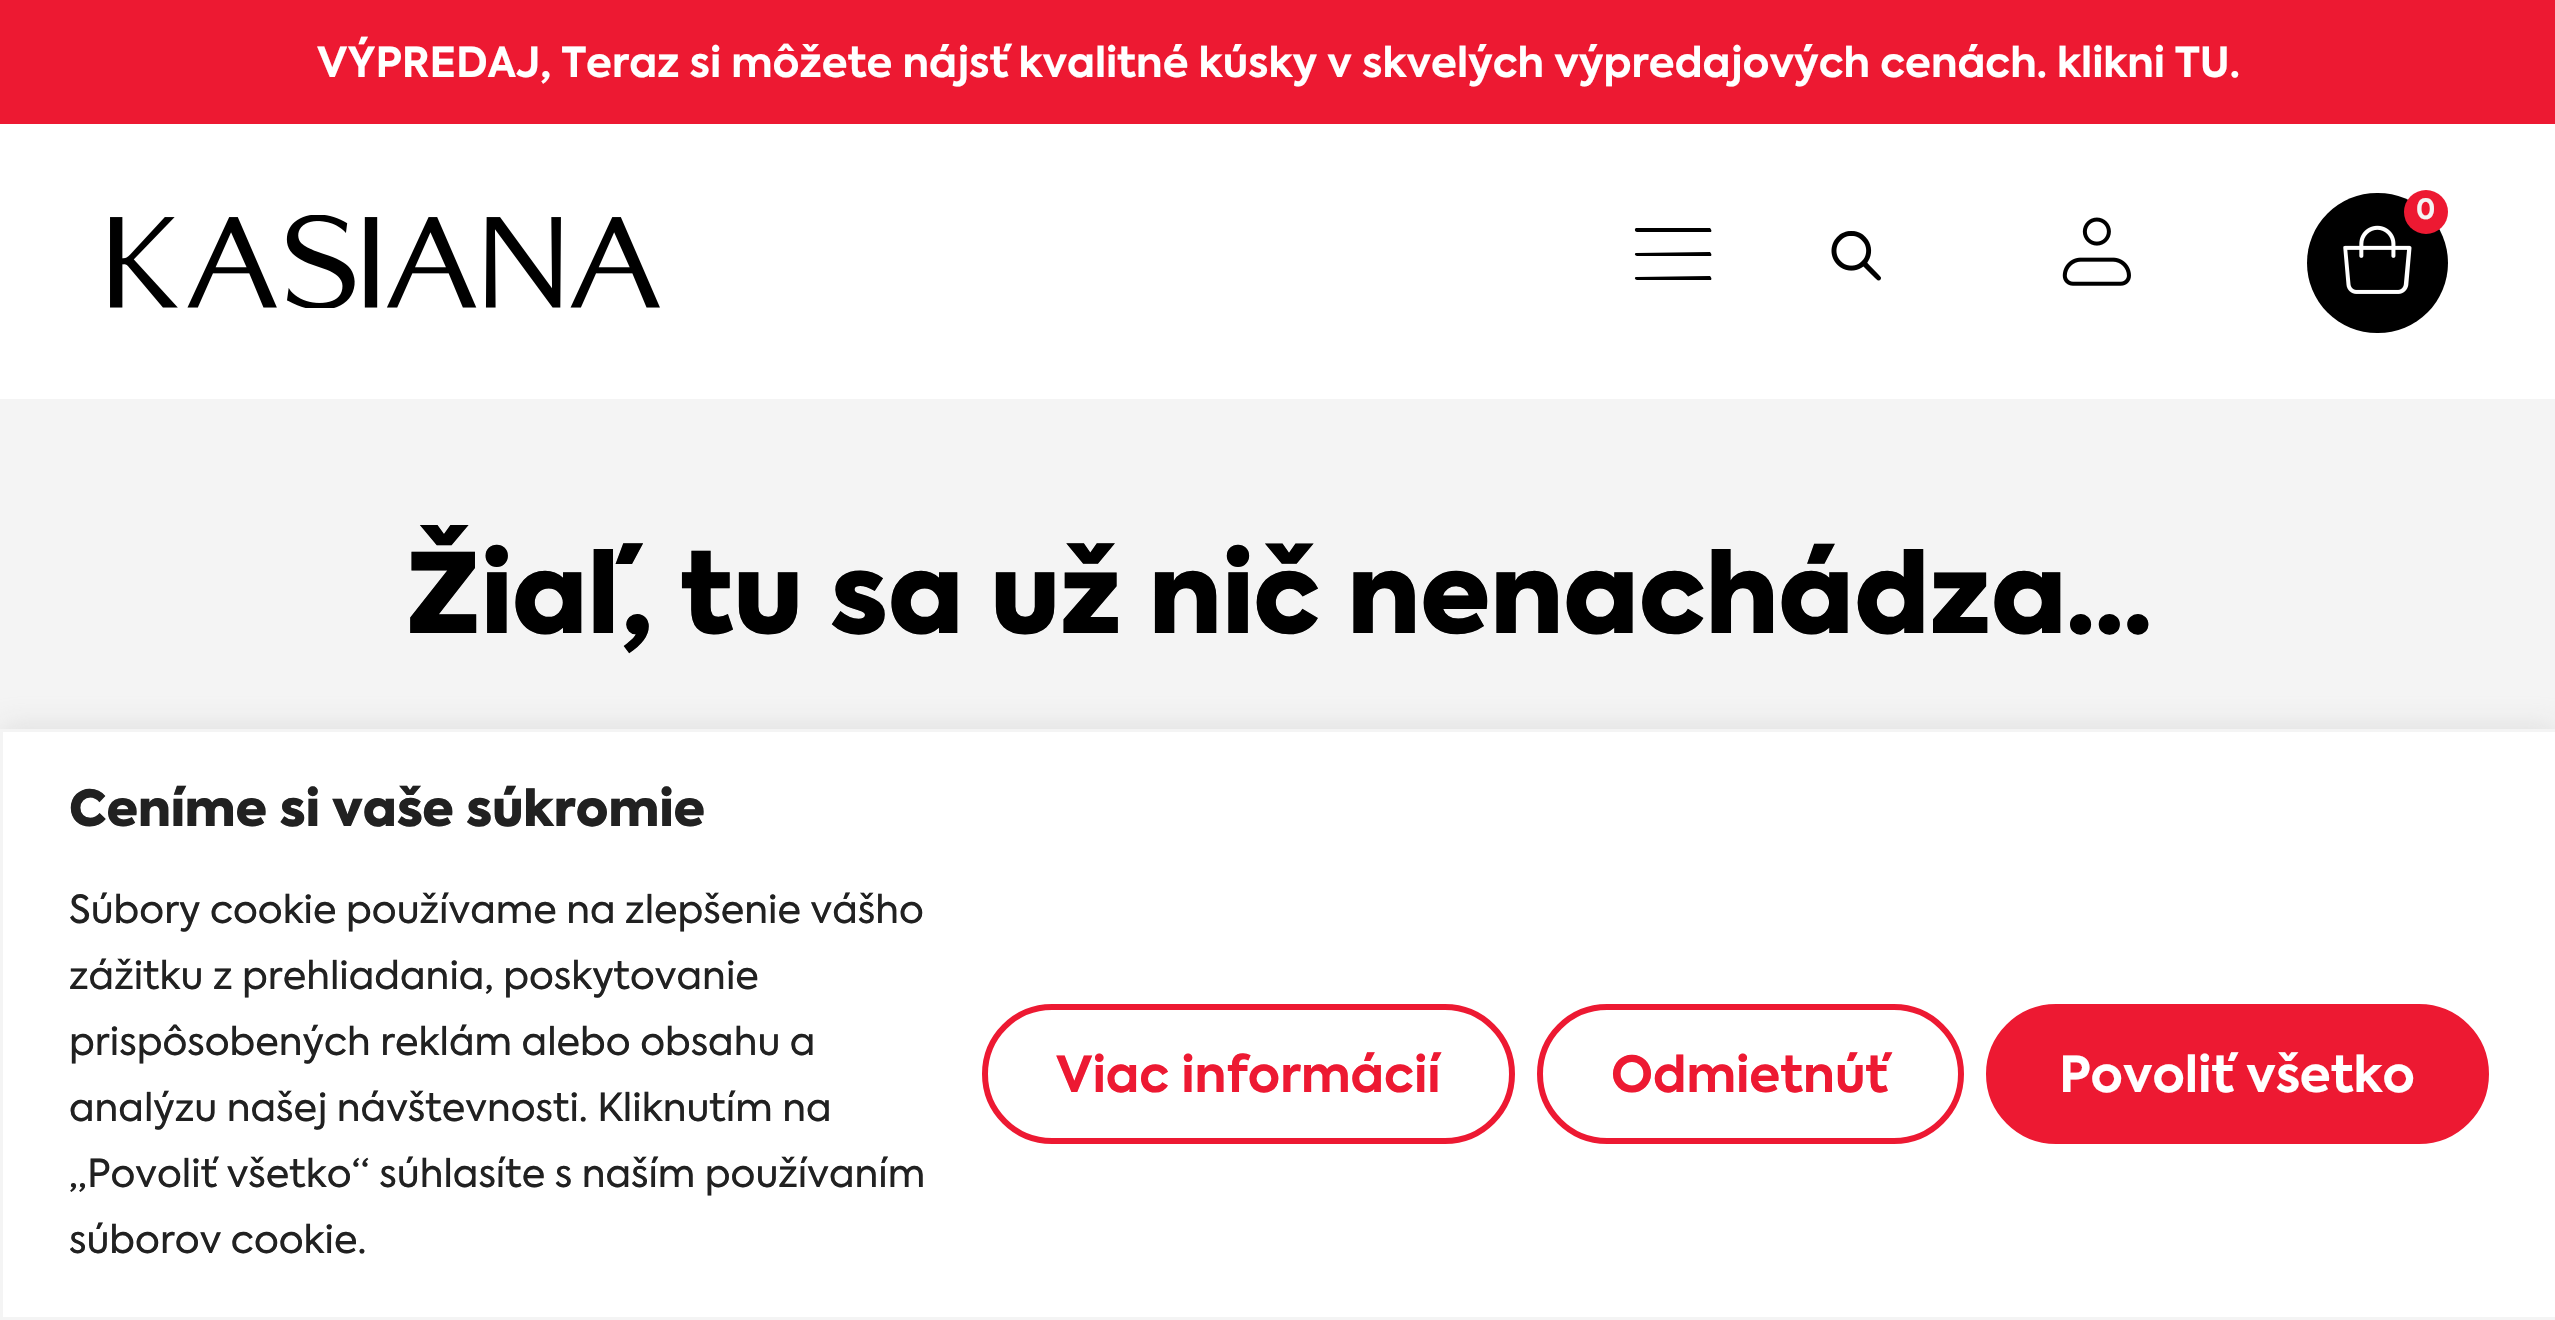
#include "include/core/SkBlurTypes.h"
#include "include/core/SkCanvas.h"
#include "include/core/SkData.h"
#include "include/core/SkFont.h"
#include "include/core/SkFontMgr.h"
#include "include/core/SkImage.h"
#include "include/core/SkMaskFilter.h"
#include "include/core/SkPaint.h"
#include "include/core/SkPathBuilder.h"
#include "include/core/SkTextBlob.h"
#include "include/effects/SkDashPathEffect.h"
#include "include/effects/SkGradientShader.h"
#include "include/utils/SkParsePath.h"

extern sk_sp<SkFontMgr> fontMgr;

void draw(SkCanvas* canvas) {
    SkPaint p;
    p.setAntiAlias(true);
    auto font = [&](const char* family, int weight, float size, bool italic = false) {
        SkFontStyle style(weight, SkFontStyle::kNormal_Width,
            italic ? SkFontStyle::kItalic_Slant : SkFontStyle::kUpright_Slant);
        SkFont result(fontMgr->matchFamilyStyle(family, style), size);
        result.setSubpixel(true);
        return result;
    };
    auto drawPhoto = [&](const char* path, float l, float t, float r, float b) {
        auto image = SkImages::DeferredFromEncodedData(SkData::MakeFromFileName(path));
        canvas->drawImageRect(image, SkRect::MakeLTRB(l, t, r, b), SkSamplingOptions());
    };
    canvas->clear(0xFFFFFFFF);
    p.setColor(0xFFED1932);
    canvas->drawRect(SkRect::MakeLTRB(0, 0, 2555, 124), p);
    auto font1 = font("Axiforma", 700, 41.25f);
    p.setColor(0xFFFFFFFF);
    canvas->drawString("VÝPREDAJ, Teraz si môžete nájsť kvalitné kúsky v skvelých výpredajových cenách. klikni TU.", 317, 77, font1, p);
    p.setColor(0xFF000000);
    canvas->drawRoundRect(SkRect::MakeLTRB(2307, 193, 2448, 333), 70, 70, p);
    drawPhoto("media/1.png", 2343, 225, 2412, 294);
    p.setColor(0xFFED1932);
    canvas->drawCircle(2426, 212, 22, p);
    auto font2 = font("Axiforma", 700, 28);
    p.setColor(0xFFF4F4F4);
    canvas->drawString("0", 2416, 219, font2, p);
    drawPhoto("media/2.png", 1831, 231, 1881, 281);
    drawPhoto("media/3.png", 2062, 217, 2131, 286);
    drawPhoto("media/4.png", 110, 215, 660, 308);
    p.setColor(0xFF000000);
    canvas->drawPath(SkPathBuilder().moveTo(1709, 280).lineTo(1637, 280).cubicTo(1635, 280, 1634, 277, 1636, 277).lineTo(1710, 276).cubicTo(1711, 277, 1712, 279, 1711, 280).close().moveTo(1709, 256).lineTo(1637, 256).cubicTo(1635, 256, 1634, 253, 1636, 253).lineTo(1710, 252).cubicTo(1711, 253, 1712, 255, 1711, 256).close().moveTo(1709, 232).lineTo(1637, 232).cubicTo(1635, 232, 1634, 229, 1636, 228).lineTo(1710, 228).cubicTo(1711, 229, 1712, 231, 1711, 232).close().detach(), p);
    p.setColor(0xFFF4F4F4);
    canvas->drawRect(SkRect::MakeLTRB(0, 399, 2555, 729), p);
    auto font3 = font("Axiforma", 900, 110);
    p.setColor(0xFF000000);
    canvas->drawString("Žiaľ, tu sa už nič nenachádza...", 406, 633, font3, p);
    p.setColor(0x4DACABAB);
    p.setMaskFilter(SkMaskFilter::MakeBlur(kNormal_SkBlurStyle, 14));
    canvas->drawRect(SkRect::MakeLTRB(0, 726, 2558, 1317), p);
    p.setMaskFilter(nullptr);
    p.setColor(0xFFFFFFFF);
    canvas->drawRect(SkRect::MakeLTRB(1.5f, 730.5f, 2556.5f, 1318.5f), p);
    p.setStyle(SkPaint::kStroke_Style);
    p.setStrokeWidth(3);
    p.setColor(0xFFF4F4F4);
    canvas->drawRect(SkRect::MakeLTRB(1.5f, 730.5f, 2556.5f, 1318.5f), p);
    auto font4 = font("Axiforma", 900, 49.5f);
    p.setStyle(SkPaint::kFill_Style);
    p.setColor(0xFF212121);
    canvas->drawString("Ceníme si vaše súkromie", 69, 826, font4, p);
    auto font5 = font("Axiforma", 400, 38.5f);
    {
        const struct { const char* s; float x, y; } items[] = {
            {"Súbory cookie používame na zlepšenie vášho", 69, 923},
            {"zážitku z prehliadania, poskytovanie", 69, 989},
            {"prispôsobených reklám alebo obsahu a", 69, 1055},
            {"analýzu našej návštevnosti. Kliknutím na", 69, 1121},
            {"„Povoliť všetko“ súhlasíte s naším používaním", 69, 1187},
            {"súborov cookie.", 69, 1253},
        };
        for (auto [s, x, y] : items) {
            canvas->drawString(s, x, y, font5, p);
        }
    }
    p.setStyle(SkPaint::kStroke_Style);
    p.setStrokeWidth(6);
    p.setColor(0xFFED1932);
    canvas->drawRoundRect(SkRect::MakeLTRB(985, 1007, 1512, 1141), 67, 67, p);
    auto font6 = font("Axiforma", 700, 49.5f);
    p.setStyle(SkPaint::kFill_Style);
    canvas->drawString("Viac informácií", 1056, 1092, font6, p);
    p.setStyle(SkPaint::kStroke_Style);
    canvas->drawRoundRect(SkRect::MakeLTRB(1540, 1007, 1961, 1141), 67, 67, p);
    p.setStyle(SkPaint::kFill_Style);
    canvas->drawString("Odmietnúť", 1611, 1092, font6, p);
    canvas->drawRoundRect(SkRect::MakeLTRB(1989, 1007, 2486, 1141), 67, 67, p);
    p.setStyle(SkPaint::kStroke_Style);
    canvas->drawRoundRect(SkRect::MakeLTRB(1989, 1007, 2486, 1141), 67, 67, p);
    p.setStyle(SkPaint::kFill_Style);
    p.setColor(0xFFFFFFFF);
    canvas->drawString("Povoliť všetko", 2059, 1092, font6, p);
}
